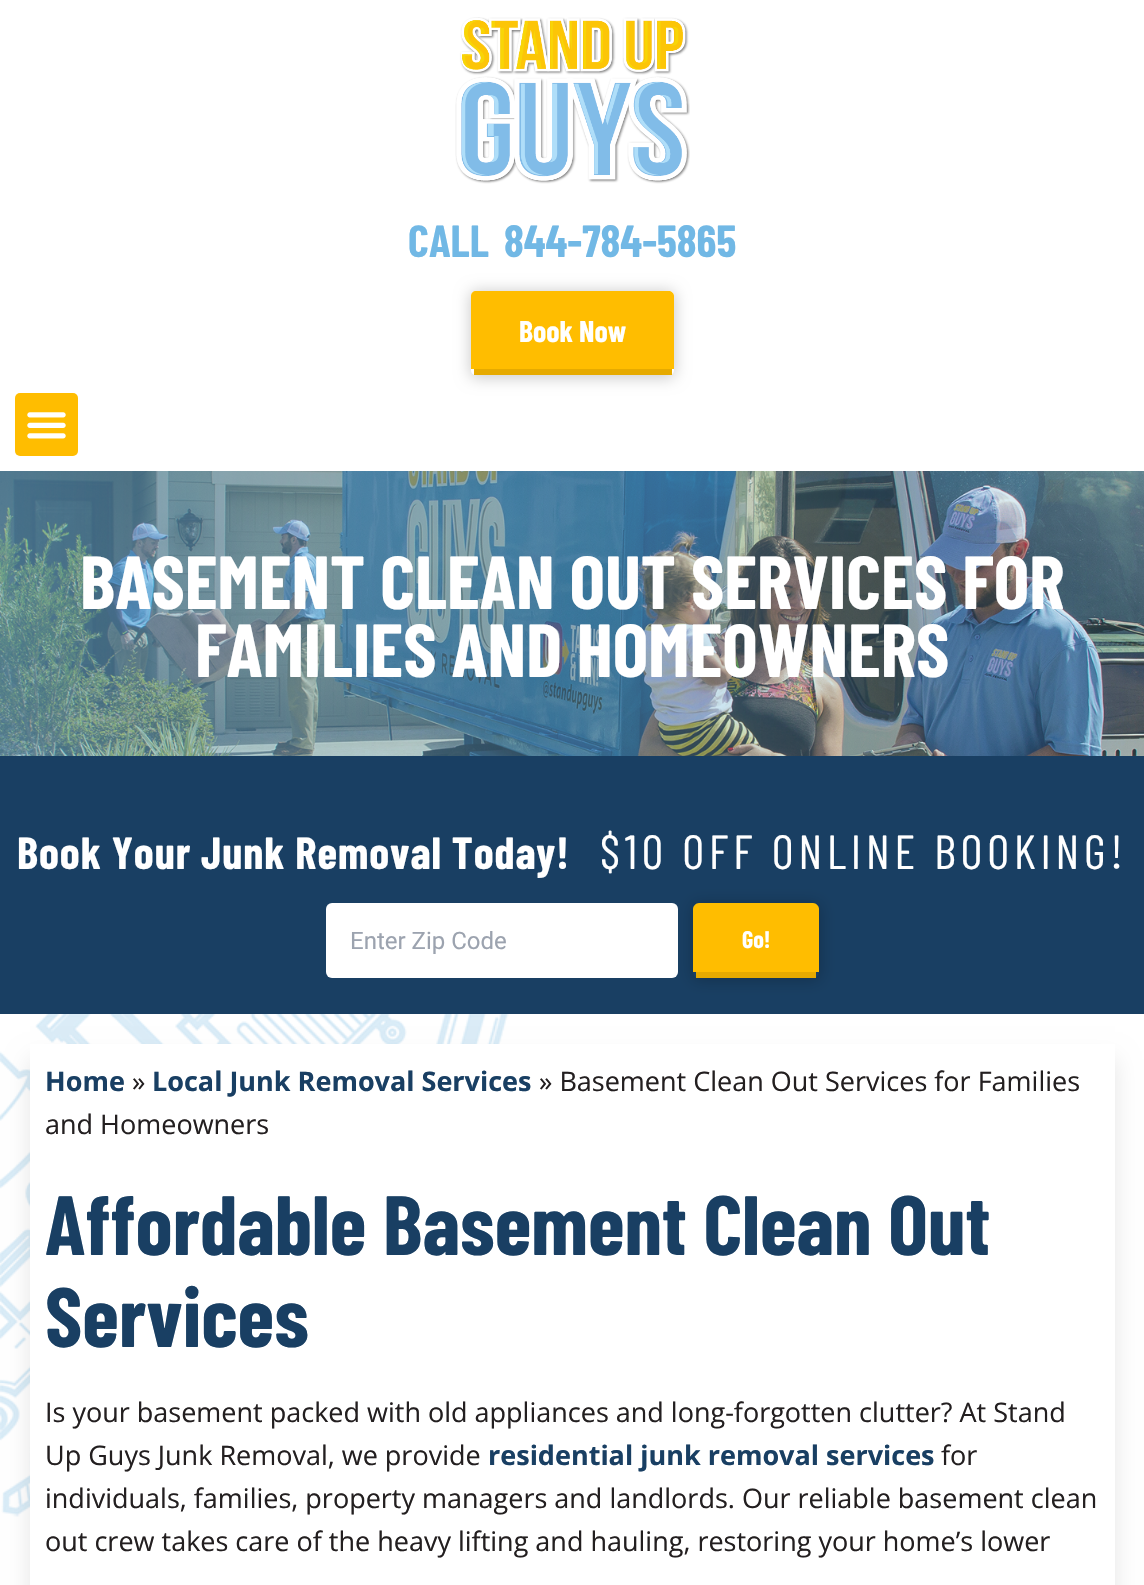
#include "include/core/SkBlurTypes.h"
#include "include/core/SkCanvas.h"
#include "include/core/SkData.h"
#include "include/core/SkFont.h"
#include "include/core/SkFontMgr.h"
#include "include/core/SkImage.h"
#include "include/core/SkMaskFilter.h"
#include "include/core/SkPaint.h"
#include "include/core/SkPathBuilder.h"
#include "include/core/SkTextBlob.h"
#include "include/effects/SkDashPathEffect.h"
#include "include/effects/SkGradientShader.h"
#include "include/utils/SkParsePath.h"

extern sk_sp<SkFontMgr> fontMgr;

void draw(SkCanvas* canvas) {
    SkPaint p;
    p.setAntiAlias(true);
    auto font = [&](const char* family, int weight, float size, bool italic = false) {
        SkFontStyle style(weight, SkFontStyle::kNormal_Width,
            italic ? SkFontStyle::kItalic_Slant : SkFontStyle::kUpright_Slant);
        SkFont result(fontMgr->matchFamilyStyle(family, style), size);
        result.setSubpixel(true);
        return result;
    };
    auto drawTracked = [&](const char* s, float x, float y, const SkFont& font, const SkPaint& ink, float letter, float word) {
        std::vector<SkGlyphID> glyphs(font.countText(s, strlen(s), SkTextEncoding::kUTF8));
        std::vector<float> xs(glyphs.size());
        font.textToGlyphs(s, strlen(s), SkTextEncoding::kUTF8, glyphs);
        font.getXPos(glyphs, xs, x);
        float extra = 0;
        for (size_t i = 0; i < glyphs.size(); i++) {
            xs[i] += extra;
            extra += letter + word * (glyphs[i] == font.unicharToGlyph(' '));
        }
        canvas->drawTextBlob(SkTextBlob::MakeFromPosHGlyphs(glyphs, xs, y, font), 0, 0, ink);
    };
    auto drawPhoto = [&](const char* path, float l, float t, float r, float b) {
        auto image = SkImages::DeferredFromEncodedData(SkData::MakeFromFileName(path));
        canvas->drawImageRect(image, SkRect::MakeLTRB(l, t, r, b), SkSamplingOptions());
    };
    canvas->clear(0xFFFFFFFF);
    drawPhoto("media/1.png", 455, 17, 690, 184);
    auto font1 = font("Barlow Condensed", 700, 45);
    p.setColor(0xFF71B8E5);
    canvas->drawString("CALL", 408, 257, font1, p);
    canvas->drawString("844-784-5865", 504, 257, font1, p);
    canvas->save();
    canvas->clipPath(SkPathBuilder(SkPathFillType::kEvenOdd).moveTo(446, 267).lineTo(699, 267).lineTo(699, 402).lineTo(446, 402).close().moveTo(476, 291).lineTo(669, 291).cubicTo(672, 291, 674, 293, 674, 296).lineTo(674, 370).cubicTo(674, 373, 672, 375, 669, 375).lineTo(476, 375).cubicTo(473, 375, 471, 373, 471, 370).lineTo(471, 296).cubicTo(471, 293, 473, 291, 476, 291).close().detach(), true);
    p.setColor(0x33000000);
    p.setMaskFilter(SkMaskFilter::MakeBlur(kNormal_SkBlurStyle, 7.5f));
    canvas->drawRoundRect(SkRect::MakeLTRB(470, 291, 675, 378), 6, 6, p);
    p.setMaskFilter(nullptr);
    canvas->restore();
    p.setColor(0xFFFFBD00);
    canvas->drawPath(SkPathBuilder().moveTo(476, 291).lineTo(669, 291).cubicTo(671, 291, 674, 293, 674, 296).lineTo(674, 369).lineTo(471, 369).lineTo(471, 296).cubicTo(471, 293, 473, 291, 476, 291).close().detach(), p);
    p.setColor(0xFFE6AA00);
    canvas->drawRect(SkRect::MakeLTRB(474, 369, 672, 375), p);
    auto font2 = font("Barlow Condensed", 700, 30);
    p.setColor(0xFFFFFFFF);
    canvas->drawString("Book Now", 519, 342, font2, p);
    p.setColor(0xFFFFBD00);
    canvas->drawRoundRect(SkRect::MakeLTRB(15, 393, 78, 456), 5, 5, p);
    drawPhoto("media/2.png", 27, 412, 66, 439);
    drawPhoto("media/3.png", 0, 471, 1144, 756);
    auto font3 = font("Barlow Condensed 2", 700, 75);
    p.setColor(0xFFFFFFFF);
    canvas->drawString("BASEMENT CLEAN OUT SERVICES FOR", 80, 609, font3, p);
    canvas->drawString("FAMILIES AND HOMEOWNERS", 195, 677, font3, p);
    p.setColor(0xFF193F63);
    canvas->drawRect(SkRect::MakeLTRB(0, 756, 1144, 1014), p);
    p.setColor(0xFFFFFFFF);
    drawTracked("Book Your Junk Removal Today!", 17, 869, font1, p, 0.9f, 0);
    auto font4 = font("Barlow Condensed", 400, 48);
    drawTracked("$10 OFF ONLINE BOOKING!", 600, 869, font4, p, 4.8f, 0);
    canvas->drawRoundRect(SkRect::MakeLTRB(326, 903, 678, 978), 6, 6, p);
    auto font5 = font("Roboto", 400, 24);
    p.setColor(0xFF9CA3AF);
    canvas->drawString("Enter Zip Code", 350, 949, font5, p);
    canvas->save();
    canvas->clipPath(SkPathBuilder(SkPathFillType::kEvenOdd).moveTo(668, 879).lineTo(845, 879).lineTo(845, 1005).lineTo(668, 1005).close().moveTo(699, 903).lineTo(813, 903).cubicTo(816.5f, 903, 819, 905.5f, 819, 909).lineTo(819, 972).cubicTo(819, 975.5f, 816.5f, 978, 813, 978).lineTo(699, 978).cubicTo(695.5f, 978, 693, 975.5f, 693, 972).lineTo(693, 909).cubicTo(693, 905.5f, 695.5f, 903, 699, 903).close().detach(), true);
    p.setColor(0x33000000);
    p.setMaskFilter(SkMaskFilter::MakeBlur(kNormal_SkBlurStyle, 7.5f));
    canvas->drawRoundRect(SkRect::MakeLTRB(692, 903, 821, 981), 8, 8, p);
    p.setMaskFilter(nullptr);
    canvas->restore();
    p.setColor(0xFFFFBD00);
    canvas->drawPath(SkPathBuilder().moveTo(699, 903).lineTo(813, 903).cubicTo(816, 903, 819, 906, 819, 909).lineTo(819, 972).lineTo(693, 972).lineTo(693, 909).cubicTo(693, 906, 696, 903, 699, 903).close().detach(), p);
    p.setColor(0xFFE6AA00);
    canvas->drawRect(SkRect::MakeLTRB(696, 972, 816, 978), p);
    auto font6 = font("Barlow Condensed", 700, 24);
    p.setColor(0xFFFFFFFF);
    canvas->drawString("Go!", 742, 948, font6, p);
    drawPhoto("media/4.png", 0, 1014, 509, 1517);
    p.setColor(0x1A000000);
    p.setMaskFilter(SkMaskFilter::MakeBlur(kNormal_SkBlurStyle, 11));
    canvas->drawRect(SkRect::MakeLTRB(30, 1059, 1115, 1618), p);
    p.setMaskFilter(nullptr);
    p.setColor(0xFFFFFFFF);
    canvas->drawRect(SkRect::MakeLTRB(30, 1044, 1115, 1585), p);
    auto font7 = font("Open Sans", 700, 27);
    p.setColor(0xFF193F63);
    canvas->drawString("Home", 45, 1091, font7, p);
    auto font8 = font("Open Sans", 400, 27);
    p.setColor(0xFF231F20);
    canvas->drawString("»", 132, 1091, font8, p);
    p.setColor(0xFF193F63);
    canvas->drawString("Local Junk Removal Services", 152, 1091, font7, p);
    p.setColor(0xFF231F20);
    canvas->drawString("» Basement Clean Out Services for Families", 539, 1091, font8, p);
    canvas->drawString("and Homeowners", 45, 1134, font8, p);
    auto font9 = font("Barlow Condensed", 700, 84);
    p.setColor(0xFF193F63);
    canvas->drawString("Affordable Basement Clean Out", 45, 1255, font9, p);
    canvas->drawString("Services", 45, 1347, font9, p);
    p.setColor(0xFF231F20);
    canvas->drawString("Is your basement packed with old appliances and long-forgotten clutter? At Stand", 45, 1422, font8, p);
    canvas->drawString("Up Guys Junk Removal, we provide", 45, 1465, font8, p);
    p.setColor(0xFF193F63);
    canvas->drawString("residential junk removal services", 488, 1465, font7, p);
    p.setColor(0xFF231F20);
    {
        const struct { const char* s; float x, y; } items[] = {
            {"for", 941, 1465},
            {"individuals, families, property managers and landlords. Our reliable basement clean", 45, 1508},
            {"out crew takes care of the heavy lifting and hauling, restoring your home’s lower", 45, 1551},
        };
        for (auto [s, x, y] : items) {
            canvas->drawString(s, x, y, font8, p);
        }
    }
}
